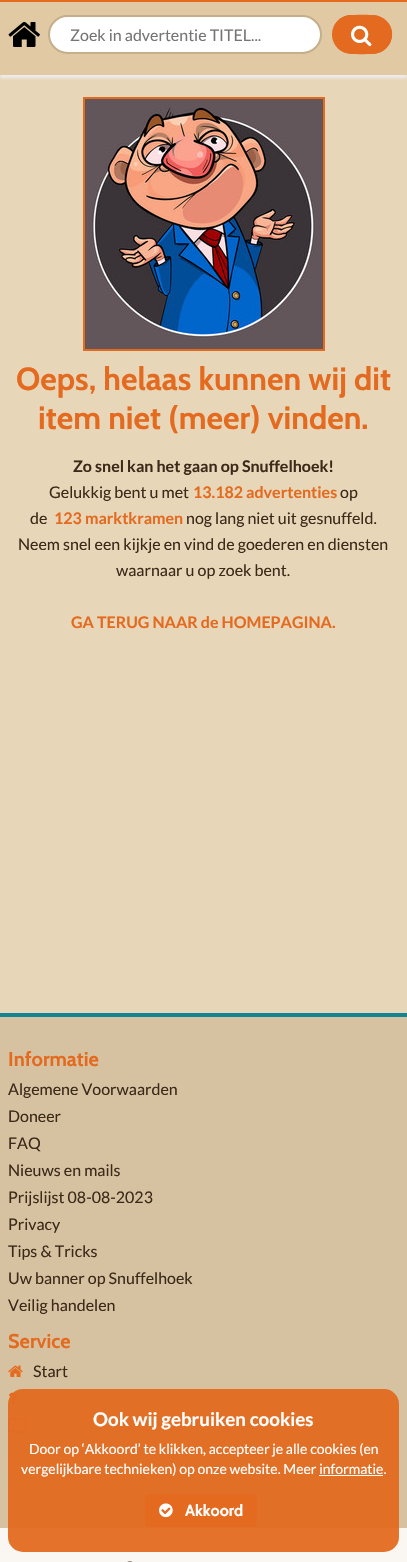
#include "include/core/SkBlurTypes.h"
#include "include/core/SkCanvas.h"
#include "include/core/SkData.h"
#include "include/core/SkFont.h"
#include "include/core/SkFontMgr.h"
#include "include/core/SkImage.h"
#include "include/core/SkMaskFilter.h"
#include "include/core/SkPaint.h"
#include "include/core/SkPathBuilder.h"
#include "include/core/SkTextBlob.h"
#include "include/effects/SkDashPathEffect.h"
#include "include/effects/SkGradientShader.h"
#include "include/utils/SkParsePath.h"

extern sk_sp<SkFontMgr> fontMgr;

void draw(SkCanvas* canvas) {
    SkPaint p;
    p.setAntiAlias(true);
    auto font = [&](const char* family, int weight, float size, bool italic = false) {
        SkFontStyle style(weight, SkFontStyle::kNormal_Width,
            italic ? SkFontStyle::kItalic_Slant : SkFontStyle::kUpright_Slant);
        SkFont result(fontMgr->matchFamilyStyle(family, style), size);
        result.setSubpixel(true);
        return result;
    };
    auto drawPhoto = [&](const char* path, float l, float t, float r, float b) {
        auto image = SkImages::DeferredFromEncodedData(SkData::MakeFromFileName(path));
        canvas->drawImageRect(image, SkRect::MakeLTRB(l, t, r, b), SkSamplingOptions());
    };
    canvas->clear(0xFFE8D6B8);
    p.setColor(0xFFEEEEEE);
    p.setMaskFilter(SkMaskFilter::MakeBlur(kNormal_SkBlurStyle, 1.5f));
    canvas->drawRect(SkRect::MakeLTRB(0, 3, 407, 78), p);
    p.setMaskFilter(nullptr);
    p.setColor(0xFFE1C9A3);
    canvas->drawRect(SkRect::MakeLTRB(0, 2, 407, 75), p);
    p.setColor(0xFFE36A1F);
    canvas->drawRect(SkRect::MakeLTRB(0, 0, 407, 2), p);
    drawPhoto("media/1.png", 8, 21, 40, 47);
    p.setColor(0xFFFFFFFF);
    canvas->drawRoundRect(SkRect::MakeLTRB(49, 16, 321, 53), 18.5f, 18.5f, p);
    p.setStyle(SkPaint::kStroke_Style);
    p.setStrokeWidth(2);
    p.setColor(0xFFC4AE8B);
    canvas->drawRoundRect(SkRect::MakeLTRB(49, 16, 321, 53), 18.5f, 18.5f, p);
    auto font1 = font("Lato", 400, 16);
    p.setStyle(SkPaint::kFill_Style);
    p.setColor(0xFF757575);
    canvas->drawString("Zoek in advertentie TITEL...", 70, 41, font1, p);
    p.setColor(0xFFE36A1F);
    canvas->drawRoundRect(SkRect::MakeLTRB(332, 15, 392, 54), 19.5f, 19.5f, p);
    canvas->drawPath(SkPathBuilder(SkPathFillType::kEvenOdd).moveTo(352, 15).cubicTo(359, 15, 373, 14, 380, 17).cubicTo(400, 25, 394, 53, 372, 54).cubicTo(366, 54, 350, 55, 344, 52).cubicTo(325, 44, 330, 15, 352, 15).close().moveTo(352, 17).cubicTo(359, 17, 373, 16, 379, 18).cubicTo(397, 26, 391, 51, 372, 52).cubicTo(365, 52, 350, 53, 344, 51).cubicTo(324, 43, 331, 17, 352, 17).close().detach(), p);
    drawPhoto("media/2.png", 351, 25, 372, 47);
    p.setStyle(SkPaint::kStroke_Style);
    canvas->drawRect(SkRect::MakeLTRB(84, 98, 324, 350), p);
    drawPhoto("media/3.png", 85, 99, 323, 349);
    auto font2 = font("Cabin", 700, 32);
    p.setStyle(SkPaint::kFill_Style);
    canvas->drawString("Oeps, helaas kunnen wij dit", 16, 390, font2, p);
    canvas->drawString("item niet (meer) vinden.", 38, 429, font2, p);
    auto font3 = font("Lato", 700, 16);
    p.setColor(0xFF3B2A1A);
    canvas->drawString("Zo snel kan het gaan op Snuffelhoek!", 73, 472, font3, p);
    canvas->drawString("Gelukkig bent u met", 49, 498, font1, p);
    p.setColor(0xFFE36A1F);
    canvas->drawString("13.182 advertenties", 193, 498, font3, p);
    p.setColor(0xFF3B2A1A);
    canvas->drawString("op", 340, 498, font1, p);
    canvas->drawString("de", 30, 524, font1, p);
    p.setColor(0xFFE36A1F);
    canvas->drawString("123 marktkramen", 54, 524, font3, p);
    p.setColor(0xFF3B2A1A);
    {
        const struct { const char* s; float x, y; } items[] = {
            {"nog lang niet uit gesnuffeld.", 186, 524},
            {"Neem snel een kijkje en vind de goederen en diensten", 18, 550},
            {"waarnaar u op zoek bent.", 116, 576},
        };
        for (auto [s, x, y] : items) {
            canvas->drawString(s, x, y, font1, p);
        }
    }
    p.setColor(0xFFE36A1F);
    canvas->drawString("GA TERUG NAAR de HOMEPAGINA.", 71, 628, font3, p);
    p.setColor(0xFFD6C2A0);
    canvas->drawRect(SkRect::MakeLTRB(0, 1017, 407, 1528), p);
    p.setColor(0xFF128494);
    canvas->drawRect(SkRect::MakeLTRB(0, 1013, 407, 1017), p);
    auto font4 = font("Cabin", 700, 20);
    p.setColor(0xFFE36A1F);
    canvas->drawString("Informatie", 8, 1066, font4, p);
    p.setColor(0xFF3B2A1A);
    {
        const struct { const char* s; float x, y; } items[] = {
            {"Algemene Voorwaarden", 8, 1095},
            {"Doneer", 8, 1122},
            {"FAQ", 8, 1149},
            {"Nieuws en mails", 8, 1176},
            {"Prijslijst 08-08-2023", 8, 1203},
            {"Privacy", 8, 1230},
            {"Tips & Tricks", 8, 1257},
            {"Uw banner op Snuffelhoek", 8, 1284},
            {"Veilig handelen", 8, 1311},
        };
        for (auto [s, x, y] : items) {
            canvas->drawString(s, x, y, font1, p);
        }
    }
    p.setColor(0xFFE36A1F);
    canvas->drawString("Service", 8, 1348, font4, p);
    drawPhoto("media/4.png", 8, 1365, 23, 1377);
    p.setColor(0xFF3B2A1A);
    canvas->drawString("Start", 33, 1377, font1, p);
    drawPhoto("media/5.png", 8, 1392, 18, 1404);
    drawPhoto("media/6.png", 8, 1417, 27, 1434);
    p.setColor(0xFFFAF7F2);
    canvas->drawRect(SkRect::MakeLTRB(0, 1528, 407, 1562), p);
    drawPhoto("media/7.png", 127, 1561, 133, 1562);
    p.setColor(0xF2E36A1F);
    canvas->drawRoundRect(SkRect::MakeLTRB(8, 1389, 399, 1552), 15, 15, p);
    auto font5 = font("Lato", 700, 18.75f);
    p.setColor(0xFFFFFFFF);
    canvas->drawString("Ook wij gebruiken cookies", 93, 1426, font5, p);
    auto font6 = font("Lato", 400, 14);
    canvas->drawString("Door op ‘Akkoord’ te klikken, accepteer je alle cookies (en", 29, 1454, font6, p);
    canvas->drawString("vergelijkbare technieken) op onze website. Meer informatie.", 21, 1474, font6, p);
    canvas->drawRect(SkRect::MakeLTRB(319, 1475, 383, 1476), p);
    p.setColor(0xFFE36A1F);
    canvas->drawRoundRect(SkRect::MakeLTRB(145, 1494, 257, 1527), 4, 4, p);
    drawPhoto("media/8.png", 159, 1503, 173, 1518);
    auto font7 = font("Cabin", 700, 16);
    p.setColor(0xFFFFFFFF);
    canvas->drawString("Akkoord", 185, 1516, font7, p);
}
